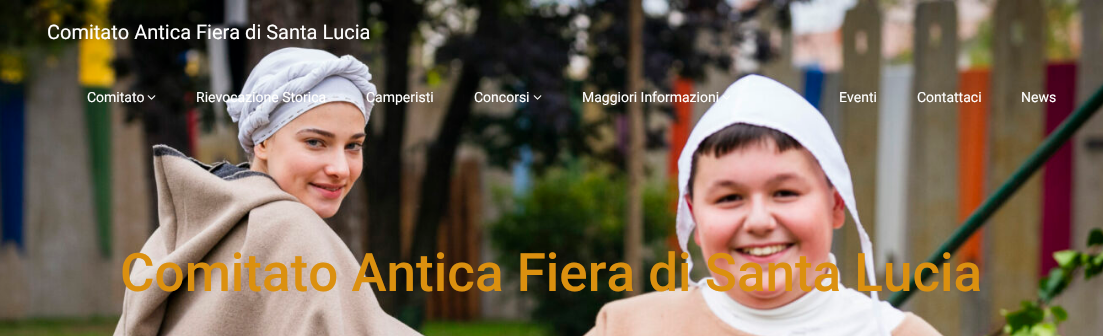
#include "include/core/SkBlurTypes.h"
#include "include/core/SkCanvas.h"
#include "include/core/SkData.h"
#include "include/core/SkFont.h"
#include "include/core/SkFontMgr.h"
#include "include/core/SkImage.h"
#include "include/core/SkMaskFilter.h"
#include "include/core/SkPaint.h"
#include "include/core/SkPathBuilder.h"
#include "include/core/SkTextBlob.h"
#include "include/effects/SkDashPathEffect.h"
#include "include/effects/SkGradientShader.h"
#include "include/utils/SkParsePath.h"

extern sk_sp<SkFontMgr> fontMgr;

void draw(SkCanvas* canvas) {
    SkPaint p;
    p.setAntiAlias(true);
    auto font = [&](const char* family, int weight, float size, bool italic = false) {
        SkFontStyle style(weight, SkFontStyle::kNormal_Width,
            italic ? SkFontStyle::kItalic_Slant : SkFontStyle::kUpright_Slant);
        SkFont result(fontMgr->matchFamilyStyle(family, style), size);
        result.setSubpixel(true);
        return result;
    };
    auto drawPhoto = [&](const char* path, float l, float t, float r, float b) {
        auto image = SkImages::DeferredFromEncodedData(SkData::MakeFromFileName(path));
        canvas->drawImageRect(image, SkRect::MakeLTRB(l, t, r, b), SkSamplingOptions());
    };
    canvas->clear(0xFFFFFFFF);
    drawPhoto("media/1.png", 0, 0, 1103, 336);
    auto font1 = font("Roboto", 400, 20);
    p.setColor(0xFFFFFFFF);
    canvas->drawString("Comitato Antica Fiera di Santa Lucia", 47, 39, font1, p);
    auto font2 = font("Roboto", 400, 14);
    canvas->drawString("Comitato", 87, 102, font2, p);
    drawPhoto("media/2.png", 147, 95, 156, 100);
    {
        const struct { const char* s; float x, y; } items[] = {
            {"Rievocazione Storica", 196, 102},
            {"Camperisti", 366, 102},
            {"Concorsi", 474, 102},
        };
        for (auto [s, x, y] : items) {
            canvas->drawString(s, x, y, font2, p);
        }
    }
    drawPhoto("media/3.png", 533, 95, 542, 100);
    canvas->drawString("Maggiori Informazioni", 582, 102, font2, p);
    drawPhoto("media/4.png", 722, 95, 730, 100);
    {
        const struct { const char* s; float x, y; } items[] = {
            {"Eventi", 839, 102},
            {"Contattaci", 917, 102},
            {"News", 1021, 102},
        };
        for (auto [s, x, y] : items) {
            canvas->drawString(s, x, y, font2, p);
        }
    }
    auto font3 = font("Roboto", 500, 53);
    p.setColor(0xFFDB900F);
    canvas->drawString("Comitato Antica Fiera di Santa Lucia", 120, 291, font3, p);
}
